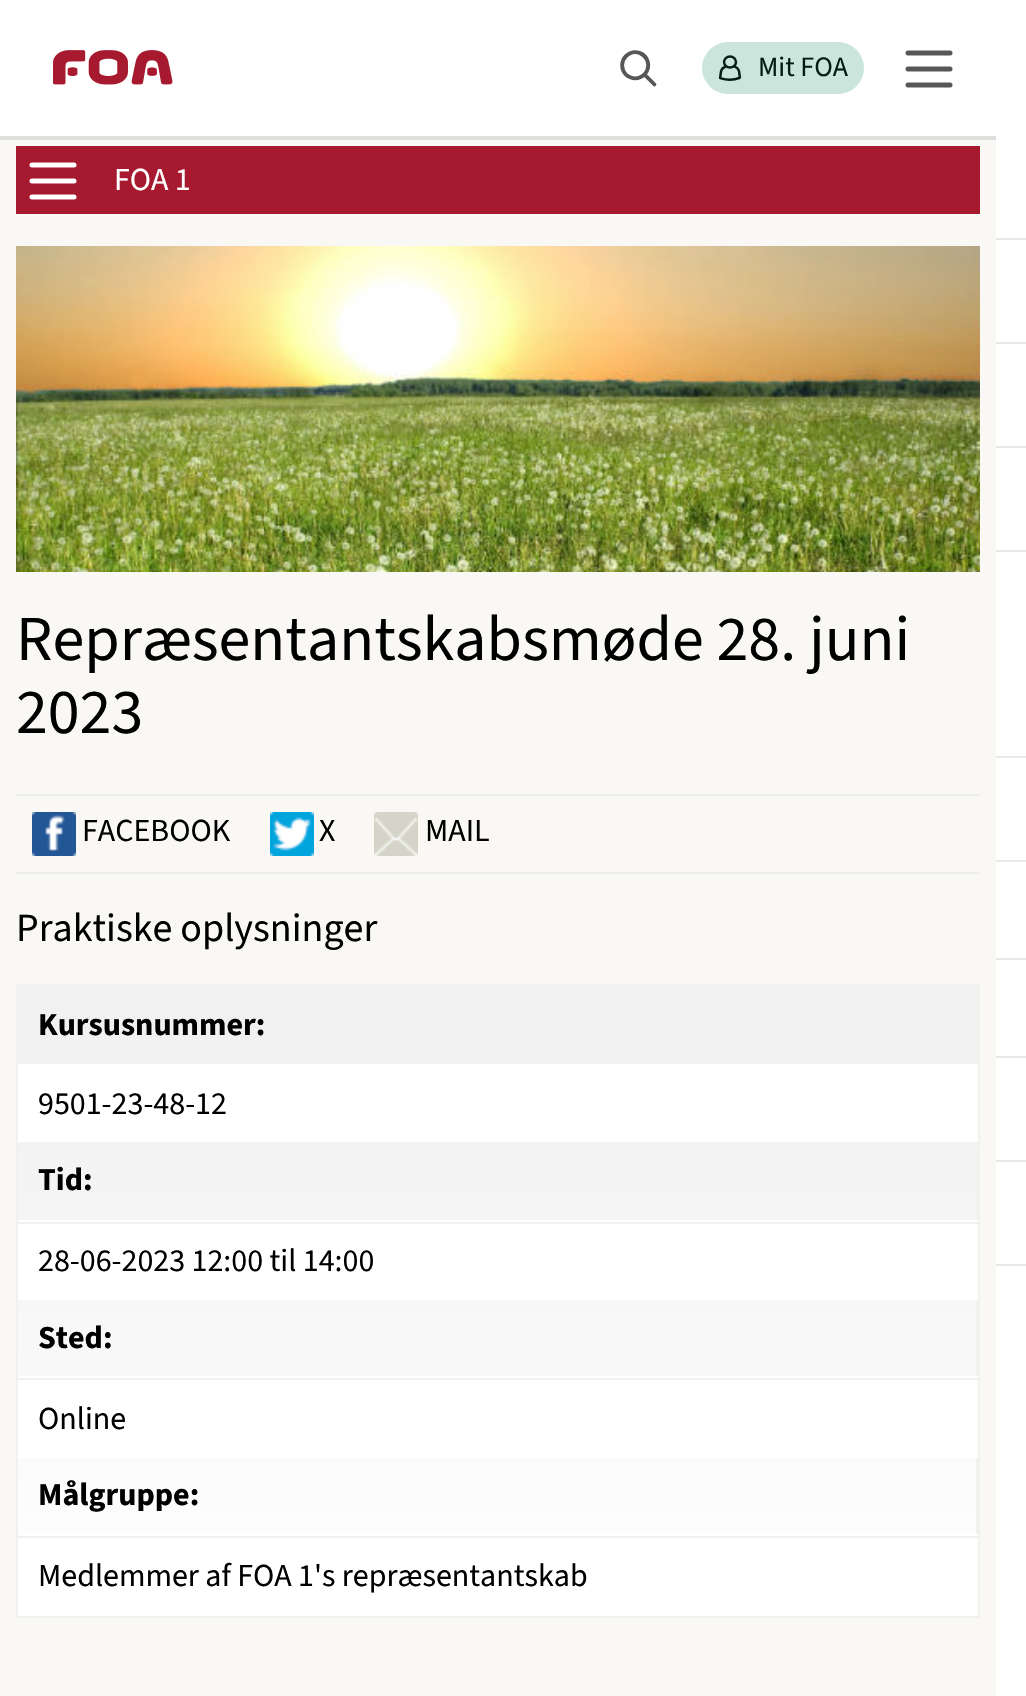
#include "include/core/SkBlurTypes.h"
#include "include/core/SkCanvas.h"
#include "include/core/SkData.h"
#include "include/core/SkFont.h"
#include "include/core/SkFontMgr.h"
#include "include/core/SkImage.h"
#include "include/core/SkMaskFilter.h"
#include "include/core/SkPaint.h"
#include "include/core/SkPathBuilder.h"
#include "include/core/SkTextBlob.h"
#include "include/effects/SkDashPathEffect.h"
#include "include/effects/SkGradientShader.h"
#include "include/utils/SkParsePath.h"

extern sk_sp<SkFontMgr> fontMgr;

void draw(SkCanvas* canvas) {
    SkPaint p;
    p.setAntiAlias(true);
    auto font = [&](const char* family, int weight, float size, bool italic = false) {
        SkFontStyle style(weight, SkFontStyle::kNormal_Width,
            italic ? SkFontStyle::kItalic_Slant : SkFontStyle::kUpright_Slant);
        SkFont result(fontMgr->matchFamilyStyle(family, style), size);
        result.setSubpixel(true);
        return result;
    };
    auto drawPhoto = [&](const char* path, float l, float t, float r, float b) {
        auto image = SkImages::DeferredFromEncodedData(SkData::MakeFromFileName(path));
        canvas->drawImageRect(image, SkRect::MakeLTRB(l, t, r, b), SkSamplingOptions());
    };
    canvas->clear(0xFFFFFFFF);
    p.setColor(0xFFF9F8F4);
    canvas->drawRect(SkRect::MakeLTRB(0, 140, 996, 1696), p);
    p.setColor(0xFFDEDEDE);
    canvas->drawRect(SkRect::MakeLTRB(0, 136, 996, 140), p);
    drawPhoto("media/1.png", 53, 50, 173, 85);
    drawPhoto("media/2.png", 620, 50, 657, 87);
    p.setColor(0xFFCCE5DC);
    canvas->drawRoundRect(SkRect::MakeLTRB(702, 42, 864, 94), 26, 26, p);
    drawPhoto("media/3.png", 718, 55, 742, 81);
    auto font1 = font("Source Sans 3", 400, 28);
    p.setColor(0xFF041D14);
    canvas->drawString("Mit FOA", 758, 76, font1, p);
    p.setStyle(SkPaint::kStroke_Style);
    p.setStrokeWidth(5);
    p.setStrokeCap(SkPaint::kRound_Cap);
    p.setColor(0xFF575757);
    canvas->drawPath(SkPathBuilder().moveTo(908, 53).lineTo(950, 53).moveTo(908, 69).lineTo(950, 69).moveTo(908, 85).lineTo(950, 85).detach(), p);
    p.setStyle(SkPaint::kFill_Style);
    {
        const struct { float l, t, r, b; SkColor color; } items[] = {
            {996, 238, 1026, 240, 0xFFE9E9E9},
            {996, 342, 1026, 344, 0xFFE9E9E9},
            {996, 446, 1026, 448, 0xFFE9E9E9},
            {996, 550, 1026, 552, 0xFFE9E9E9},
            {996, 756, 1026, 758, 0xFFE9E9E9},
            {996, 860, 1026, 862, 0xFFE9E9E9},
            {996, 958, 1026, 960, 0xFFE9E9E9},
            {996, 1056, 1026, 1058, 0xFFE9E9E9},
            {996, 1160, 1026, 1162, 0xFFE9E9E9},
            {996, 1264, 1026, 1266, 0xFFE9E9E9},
            {16, 146, 980, 214, 0xFFA6192E},
        };
        for (auto [l, t, r, b, color] : items) {
            p.setColor(color);
            canvas->drawRect(SkRect::MakeLTRB(l, t, r, b), p);
        }
    }
    p.setStyle(SkPaint::kStroke_Style);
    p.setColor(0xFFFFFFFF);
    canvas->drawPath(SkPathBuilder().moveTo(32, 165).lineTo(74, 165).moveTo(32, 181).lineTo(74, 181).moveTo(32, 197).lineTo(74, 197).detach(), p);
    auto font2 = font("Source Sans 3", 400, 32);
    p.setStyle(SkPaint::kFill_Style);
    canvas->drawString("FOA 1", 114, 190, font2, p);
    drawPhoto("media/4.png", 16, 246, 980, 572);
    auto font3 = font("Source Sans 3", 400, 64);
    p.setColor(0xFF000000);
    canvas->drawString("Repræsentantskabsmøde 28. juni", 16, 660, font3, p);
    canvas->drawString("2023", 16, 733, font3, p);
    p.setColor(0xFFEEEEEE);
    canvas->drawRect(SkRect::MakeLTRB(16, 794, 980, 796), p);
    canvas->drawRect(SkRect::MakeLTRB(16, 872, 980, 874), p);
    drawPhoto("media/5.png", 32, 812, 76, 856);
    p.setColor(0xFF000000);
    canvas->drawString("FACEBOOK", 82, 841, font2, p);
    drawPhoto("media/6.png", 270, 812, 314, 856);
    canvas->drawString("X", 319, 841, font2, p);
    drawPhoto("media/7.png", 374, 812, 418, 856);
    canvas->drawString("MAIL", 425, 841, font2, p);
    auto font4 = font("Source Sans 3", 400, 40);
    canvas->drawString("Praktiske oplysninger", 16, 941, font4, p);
    {
        const SkColor colors[] = {0xFFF1F1F1, 0xFFF1F1F1, 0xFFFFFFFF};
        const float stops[] = {0, 0.11f, 1};
        const SkPoint ends[] = {{498, 986}, {498, 1616}};
        p.setShader(SkGradientShader::MakeLinear(ends, colors, stops, 3, SkTileMode::kClamp));
        p.setAlpha(255);
    }
    canvas->drawRect(SkRect::MakeLTRB(18, 986, 978, 1534), p);
    {
        const SkColor colors[] = {0xFFF1F1F1, 0xFFF1F1F1, 0xFFFFFFFF};
        const float stops[] = {0, 0.11f, 1};
        const SkPoint ends[] = {{498, 1616}, {498, 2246}};
        p.setShader(SkGradientShader::MakeLinear(ends, colors, stops, 3, SkTileMode::kClamp));
        p.setAlpha(255);
    }
    canvas->drawRect(SkRect::MakeLTRB(16, 1616, 980, 1618), p);
    p.setShader(nullptr);
    {
        const struct { float l, t, r, b; SkColor color; } items[] = {
            {16, 984, 980, 986, 0xFFF1F1F1},
            {978, 984, 980, 1618, 0xFFF1F1F1},
            {16, 984, 18, 1618, 0xFFF1F1F1},
            {18, 1064, 978, 1142, 0xFFFFFFFF},
        };
        for (auto [l, t, r, b, color] : items) {
            p.setColor(color);
            canvas->drawRect(SkRect::MakeLTRB(l, t, r, b), p);
        }
    }
    auto font5 = font("Source Sans 3", 700, 32);
    p.setColor(0xFF000000);
    canvas->drawString("Kursusnummer:", 38, 1035, font5, p);
    canvas->drawString("9501-23-48-12", 38, 1114, font2, p);
    p.setColor(0xFFF1F1F1);
    canvas->drawRect(SkRect::MakeLTRB(976, 1155, 978, 1222), p);
    p.setColor(0xFFFFFFFF);
    canvas->drawRect(SkRect::MakeLTRB(18, 1220, 978, 1222), p);
    p.setColor(0xFF000000);
    canvas->drawString("Tid:", 38, 1190, font5, p);
    p.setColor(0xFFFFFFFF);
    canvas->drawRect(SkRect::MakeLTRB(18, 1224, 978, 1300), p);
    p.setColor(0xFFF1F1F1);
    canvas->drawRect(SkRect::MakeLTRB(18, 1222, 978, 1224), p);
    p.setColor(0xFF000000);
    canvas->drawString("28-06-2023 12:00 til 14:00", 38, 1271, font2, p);
    p.setColor(0xFFF1F1F1);
    canvas->drawRect(SkRect::MakeLTRB(976, 1300, 978, 1378), p);
    p.setColor(0xFFFFFFFF);
    canvas->drawRect(SkRect::MakeLTRB(18, 1376, 978, 1378), p);
    p.setColor(0xFF000000);
    canvas->drawString("Sted:", 38, 1348, font5, p);
    p.setColor(0xFFFFFFFF);
    canvas->drawRect(SkRect::MakeLTRB(18, 1380, 978, 1458), p);
    p.setColor(0xFFF1F1F1);
    canvas->drawRect(SkRect::MakeLTRB(18, 1378, 978, 1380), p);
    p.setColor(0xFF000000);
    canvas->drawString("Online", 38, 1429, font2, p);
    p.setColor(0xFFF1F1F1);
    canvas->drawRect(SkRect::MakeLTRB(976, 1458, 978, 1536), p);
    p.setColor(0xFFFFFFFF);
    canvas->drawRect(SkRect::MakeLTRB(18, 1534, 978, 1536), p);
    p.setColor(0xFF000000);
    canvas->drawString("Målgruppe:", 38, 1505, font5, p);
    p.setColor(0xFFFFFFFF);
    canvas->drawRect(SkRect::MakeLTRB(18, 1538, 978, 1616), p);
    p.setColor(0xFFF1F1F1);
    canvas->drawRect(SkRect::MakeLTRB(18, 1536, 978, 1538), p);
    p.setColor(0xFF000000);
    canvas->drawString("Medlemmer af FOA 1's repræsentantskab", 38, 1586, font2, p);
}
